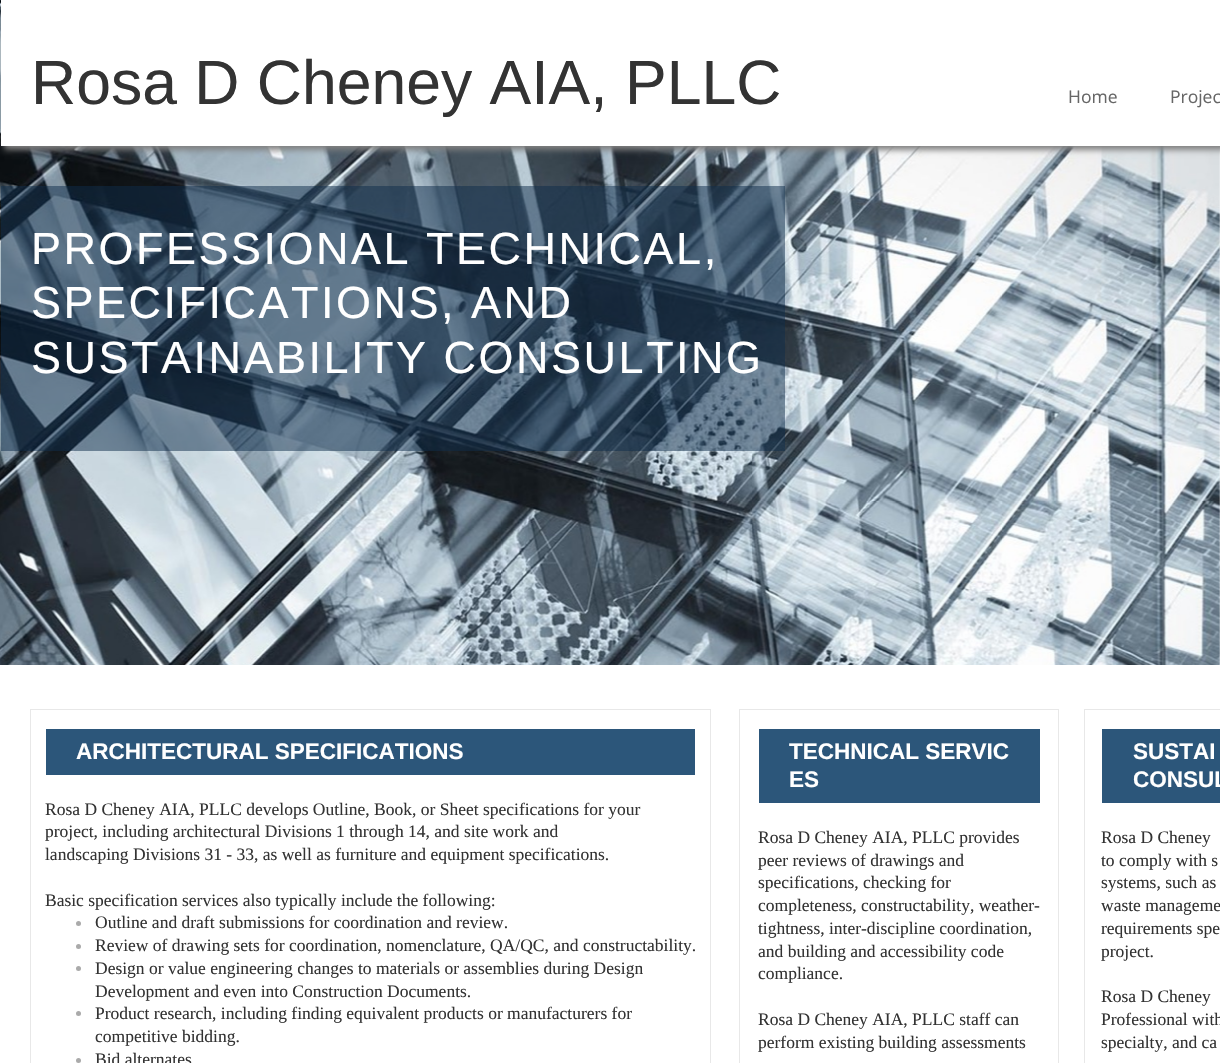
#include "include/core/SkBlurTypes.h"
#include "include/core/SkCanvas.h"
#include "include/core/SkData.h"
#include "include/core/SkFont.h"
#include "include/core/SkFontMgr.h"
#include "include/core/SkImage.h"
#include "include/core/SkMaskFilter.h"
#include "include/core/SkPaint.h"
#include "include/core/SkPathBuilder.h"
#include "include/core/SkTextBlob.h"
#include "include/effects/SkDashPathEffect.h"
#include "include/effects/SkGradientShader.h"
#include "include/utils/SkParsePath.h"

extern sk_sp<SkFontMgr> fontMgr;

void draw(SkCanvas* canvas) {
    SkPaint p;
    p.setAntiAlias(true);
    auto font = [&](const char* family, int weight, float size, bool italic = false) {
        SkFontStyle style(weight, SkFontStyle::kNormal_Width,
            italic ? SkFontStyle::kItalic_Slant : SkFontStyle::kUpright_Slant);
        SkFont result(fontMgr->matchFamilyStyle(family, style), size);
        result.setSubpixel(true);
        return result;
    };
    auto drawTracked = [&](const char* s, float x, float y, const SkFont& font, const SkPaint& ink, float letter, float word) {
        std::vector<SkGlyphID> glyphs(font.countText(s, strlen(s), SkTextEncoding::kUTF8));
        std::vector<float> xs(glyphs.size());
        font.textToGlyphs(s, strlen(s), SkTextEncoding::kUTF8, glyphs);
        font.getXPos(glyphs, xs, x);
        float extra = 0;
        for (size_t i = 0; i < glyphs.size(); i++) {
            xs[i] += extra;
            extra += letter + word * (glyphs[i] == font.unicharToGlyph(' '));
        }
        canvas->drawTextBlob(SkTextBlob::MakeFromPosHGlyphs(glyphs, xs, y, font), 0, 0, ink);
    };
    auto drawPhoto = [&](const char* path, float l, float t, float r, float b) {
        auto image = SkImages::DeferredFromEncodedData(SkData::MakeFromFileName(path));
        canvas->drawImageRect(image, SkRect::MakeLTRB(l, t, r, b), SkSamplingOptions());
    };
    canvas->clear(0xFFFFFFFF);
    drawPhoto("media/1.png", 0, 0, 1220, 665);
    p.setColor(0xFF808080);
    p.setMaskFilter(SkMaskFilter::MakeBlur(kNormal_SkBlurStyle, 3));
    canvas->drawRect(SkRect::MakeLTRB(4, 5, 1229, 150), p);
    p.setMaskFilter(nullptr);
    p.setColor(0xFFFFFFFF);
    canvas->drawRect(SkRect::MakeLTRB(1, 0, 1220, 146), p);
    auto font1 = font("Liberation Sans", 400, 62.5f);
    p.setColor(0xFF333333);
    canvas->drawString("Rosa D Cheney AIA, PLLC", 31, 104, font1, p);
    auto font2 = font("Open Sans", 400, 17.5f);
    p.setColor(0xFF666666);
    canvas->drawString("Home", 1068, 103, font2, p);
    canvas->drawString("Projec", 1170, 103, font2, p);
    p.setColor(0x800D2B49);
    canvas->drawRect(SkRect::MakeLTRB(1, 186, 785, 451), p);
    auto font3 = font("Liberation Sans", 400, 45);
    p.setColor(0xFFFFFFFF);
    {
        const struct { const char* s; float x, y; } items[] = {
            {"PROFESSIONAL TECHNICAL,", 31, 264},
            {"SPECIFICATIONS, AND", 31, 318},
            {"SUSTAINABILITY CONSULTING", 31, 373},
        };
        for (auto [s, x, y] : items) {
            drawTracked(s, x, y, font3, p, 2.5f, 0);
        }
    }
    p.setStyle(SkPaint::kStroke_Style);
    p.setStrokeWidth(1);
    p.setColor(0xFFE8E8E8);
    canvas->drawRect(SkRect::MakeLTRB(30.5f, 709.5f, 710.5f, 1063.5f), p);
    canvas->drawRect(SkRect::MakeLTRB(739.5f, 709.5f, 1058.5f, 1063.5f), p);
    canvas->drawRect(SkRect::MakeLTRB(1084.5f, 709.5f, 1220.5f, 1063.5f), p);
    p.setStyle(SkPaint::kFill_Style);
    p.setColor(0xFF2C567A);
    canvas->drawRect(SkRect::MakeLTRB(46, 729, 695, 775), p);
    auto font4 = font("Liberation Sans", 700, 22.5f);
    p.setColor(0xFFFFFFFF);
    canvas->drawString("ARCHITECTURAL SPECIFICATIONS", 76, 759, font4, p);
    auto font5 = font("Liberation Serif", 400, 17.5f);
    p.setColor(0xFF333333);
    {
        const struct { const char* s; float x, y; } items[] = {
            {"Rosa D Cheney AIA, PLLC develops Outline, Book, or Sheet specifications for your", 45, 815},
            {"project, including architectural Divisions 1 through 14, and site work and", 45, 837},
            {"landscaping Divisions 31 - 33, as well as furniture and equipment specifications.", 45, 860},
            {"Basic specification services also typically include the following:", 45, 906},
        };
        for (auto [s, x, y] : items) {
            canvas->drawString(s, x, y, font5, p);
        }
    }
    p.setColor(0xFFAAAAAA);
    canvas->drawCircle(78.5f, 923.5f, 2.5f, p);
    p.setColor(0xFF333333);
    canvas->drawString("Outline and draft submissions for coordination and review.", 95, 928, font5, p);
    p.setColor(0xFFAAAAAA);
    canvas->drawCircle(78.5f, 946.5f, 2.5f, p);
    p.setColor(0xFF333333);
    canvas->drawString("Review of drawing sets for coordination, nomenclature, QA/QC, and constructability.", 95, 951, font5, p);
    p.setColor(0xFFAAAAAA);
    canvas->drawCircle(78.5f, 968.5f, 2.5f, p);
    p.setColor(0xFF333333);
    canvas->drawString("Design or value engineering changes to materials or assemblies during Design", 95, 974, font5, p);
    canvas->drawString("Development and even into Construction Documents.", 95, 997, font5, p);
    p.setColor(0xFFAAAAAA);
    canvas->drawCircle(78.5f, 1013.5f, 2.5f, p);
    p.setColor(0xFF333333);
    canvas->drawString("Product research, including finding equivalent products or manufacturers for", 95, 1019, font5, p);
    canvas->drawString("competitive bidding.", 95, 1042, font5, p);
    p.setColor(0xFFAAAAAA);
    canvas->drawCircle(78.5f, 1060.5f, 2.5f, p);
    p.setColor(0xFF333333);
    canvas->drawString("Bid alternates", 95, 1065, font5, p);
    p.setColor(0xFF2C567A);
    canvas->drawRect(SkRect::MakeLTRB(759, 729, 1040, 803), p);
    p.setColor(0xFFFFFFFF);
    canvas->drawString("TECHNICAL SERVIC", 789, 759, font4, p);
    canvas->drawString("ES", 789, 787, font4, p);
    p.setColor(0xFF333333);
    {
        const struct { const char* s; float x, y; } items[] = {
            {"Rosa D Cheney AIA, PLLC provides", 758, 843},
            {"peer reviews of drawings and", 758, 866},
            {"specifications, checking for", 758, 888},
            {"completeness, constructability, weather-", 758, 911},
            {"tightness, inter-discipline coordination,", 758, 934},
            {"and building and accessibility code", 758, 957},
            {"compliance.", 758, 979},
            {"Rosa D Cheney AIA, PLLC staff can", 758, 1025},
            {"perform existing building assessments", 758, 1048},
        };
        for (auto [s, x, y] : items) {
            canvas->drawString(s, x, y, font5, p);
        }
    }
    p.setColor(0xFF2C567A);
    canvas->drawRect(SkRect::MakeLTRB(1102, 729, 1220, 803), p);
    p.setColor(0xFFFFFFFF);
    canvas->drawString("SUSTAI", 1133, 759, font4, p);
    canvas->drawString("CONSUL", 1133, 787, font4, p);
    p.setColor(0xFF333333);
    {
        const struct { const char* s; float x, y; } items[] = {
            {"Rosa D Cheney", 1101, 843},
            {"to comply with s", 1101, 866},
            {"systems, such as", 1101, 888},
            {"waste manageme", 1101, 911},
            {"requirements spe", 1101, 934},
            {"project.", 1101, 957},
            {"Rosa D Cheney", 1101, 1002},
            {"Professional with", 1101, 1025},
            {"specialty, and ca", 1101, 1048},
        };
        for (auto [s, x, y] : items) {
            canvas->drawString(s, x, y, font5, p);
        }
    }
}
